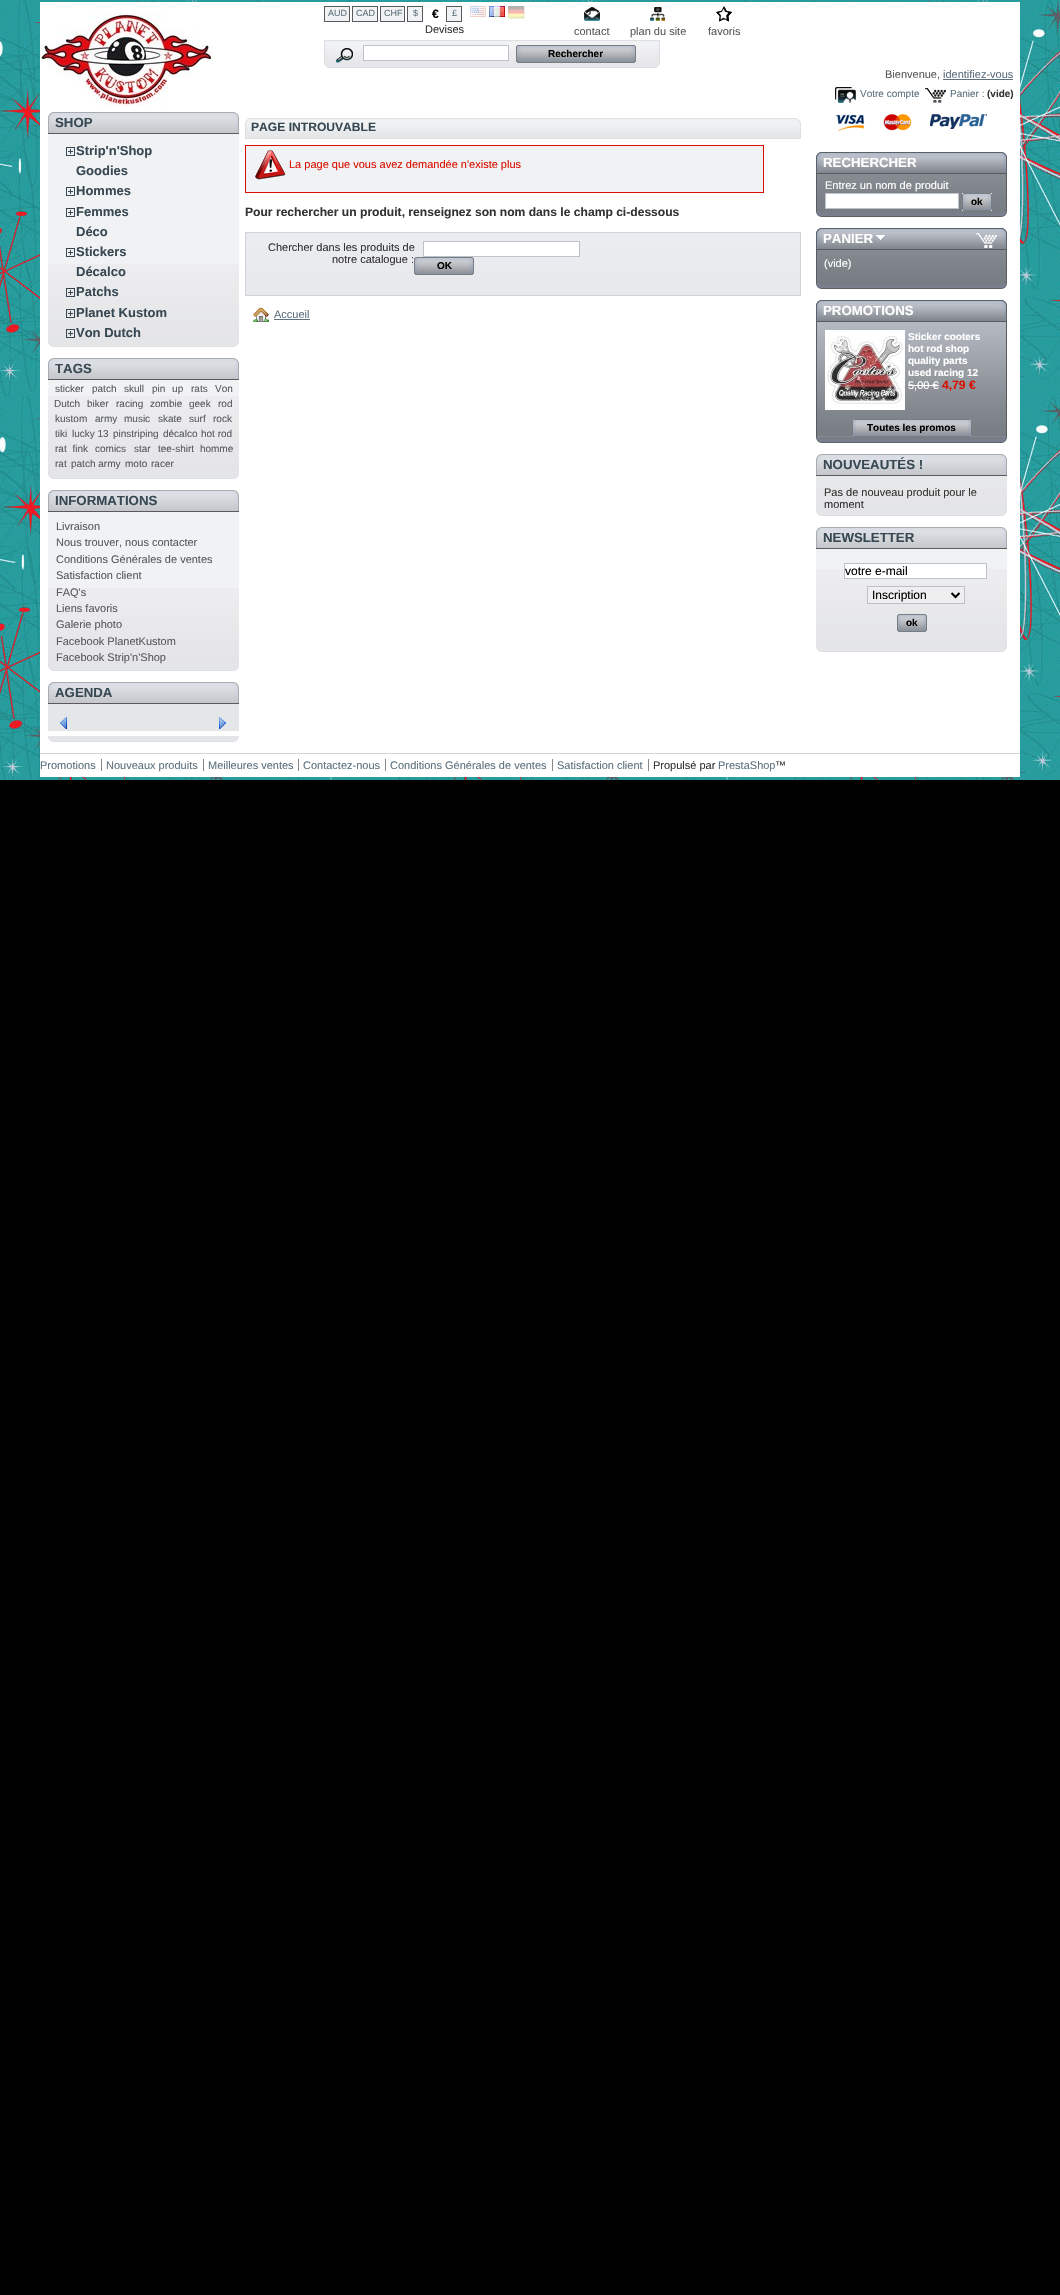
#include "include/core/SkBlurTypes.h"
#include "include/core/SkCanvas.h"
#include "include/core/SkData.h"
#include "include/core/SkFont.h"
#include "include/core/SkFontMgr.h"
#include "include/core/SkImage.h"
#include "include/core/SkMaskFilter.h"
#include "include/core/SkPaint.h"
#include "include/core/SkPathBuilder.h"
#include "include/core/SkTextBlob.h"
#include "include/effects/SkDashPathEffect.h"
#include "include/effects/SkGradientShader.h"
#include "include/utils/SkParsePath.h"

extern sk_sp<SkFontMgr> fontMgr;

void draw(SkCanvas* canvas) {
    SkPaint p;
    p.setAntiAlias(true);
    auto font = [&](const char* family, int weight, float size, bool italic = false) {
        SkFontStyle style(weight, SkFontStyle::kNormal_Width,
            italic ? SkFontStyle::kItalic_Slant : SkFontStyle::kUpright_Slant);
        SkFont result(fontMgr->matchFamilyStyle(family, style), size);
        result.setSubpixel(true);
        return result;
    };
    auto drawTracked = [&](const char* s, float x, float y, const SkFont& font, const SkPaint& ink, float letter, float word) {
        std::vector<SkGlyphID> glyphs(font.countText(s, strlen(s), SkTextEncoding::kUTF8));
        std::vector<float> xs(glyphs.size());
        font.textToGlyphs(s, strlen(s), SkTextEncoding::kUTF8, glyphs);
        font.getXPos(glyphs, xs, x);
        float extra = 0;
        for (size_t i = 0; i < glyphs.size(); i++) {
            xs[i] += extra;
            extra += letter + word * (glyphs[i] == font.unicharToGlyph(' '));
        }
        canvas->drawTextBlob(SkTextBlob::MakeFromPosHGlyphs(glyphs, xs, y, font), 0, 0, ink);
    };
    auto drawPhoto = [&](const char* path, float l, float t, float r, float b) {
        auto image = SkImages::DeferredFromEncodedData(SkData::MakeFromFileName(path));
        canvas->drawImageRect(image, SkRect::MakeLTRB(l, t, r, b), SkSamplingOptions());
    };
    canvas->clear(0xFF000000);
    drawPhoto("media/1.png", 0, 0, 1060, 780);
    p.setColor(0xFFFFFFFF);
    canvas->drawRect(SkRect::MakeLTRB(40, 2, 1020, 777), p);
    drawPhoto("media/2.png", 40, 13, 213, 106);
    p.setColor(0xFFF1F2F4);
    canvas->drawRect(SkRect::MakeLTRB(324.5f, 6.5f, 349.5f, 21.5f), p);
    p.setStyle(SkPaint::kStroke_Style);
    p.setStrokeWidth(1);
    p.setColor(0xFF595A5E);
    canvas->drawRect(SkRect::MakeLTRB(324.5f, 6.5f, 349.5f, 21.5f), p);
    auto font1 = font("Liberation Sans", 400, 9);
    p.setStyle(SkPaint::kFill_Style);
    p.setColor(0xFF5D717E);
    canvas->drawString("AUD", 328, 16, font1, p);
    p.setColor(0xFFF1F2F4);
    canvas->drawRect(SkRect::MakeLTRB(352.5f, 6.5f, 377.5f, 21.5f), p);
    p.setStyle(SkPaint::kStroke_Style);
    p.setColor(0xFF595A5E);
    canvas->drawRect(SkRect::MakeLTRB(352.5f, 6.5f, 377.5f, 21.5f), p);
    p.setStyle(SkPaint::kFill_Style);
    p.setColor(0xFF5D717E);
    canvas->drawString("CAD", 356, 16, font1, p);
    p.setColor(0xFFF1F2F4);
    canvas->drawRect(SkRect::MakeLTRB(380.5f, 6.5f, 404.5f, 21.5f), p);
    p.setStyle(SkPaint::kStroke_Style);
    p.setColor(0xFF595A5E);
    canvas->drawRect(SkRect::MakeLTRB(380.5f, 6.5f, 404.5f, 21.5f), p);
    p.setStyle(SkPaint::kFill_Style);
    p.setColor(0xFF5D717E);
    canvas->drawString("CHF", 384, 16, font1, p);
    p.setColor(0xFFF1F2F4);
    canvas->drawRect(SkRect::MakeLTRB(407.5f, 6.5f, 422.5f, 21.5f), p);
    p.setStyle(SkPaint::kStroke_Style);
    p.setColor(0xFF595A5E);
    canvas->drawRect(SkRect::MakeLTRB(407.5f, 6.5f, 422.5f, 21.5f), p);
    p.setStyle(SkPaint::kFill_Style);
    p.setColor(0xFF5D717E);
    canvas->drawString("$", 413, 16, font1, p);
    auto font2 = font("Liberation Sans", 700, 12.1f);
    p.setColor(0xFF000000);
    canvas->drawString("€", 432, 18, font2, p);
    p.setColor(0xFFF1F2F4);
    canvas->drawRect(SkRect::MakeLTRB(446.5f, 6.5f, 461.5f, 21.5f), p);
    p.setStyle(SkPaint::kStroke_Style);
    p.setColor(0xFF595A5E);
    canvas->drawRect(SkRect::MakeLTRB(446.5f, 6.5f, 461.5f, 21.5f), p);
    p.setStyle(SkPaint::kFill_Style);
    p.setColor(0xFF5D717E);
    canvas->drawString("£", 452, 16, font1, p);
    auto font3 = font("Liberation Sans", 400, 11);
    p.setColor(0xFF333333);
    canvas->drawString("Devises", 425, 33, font3, p);
    drawPhoto("media/3.png", 470, 6, 486, 17);
    drawPhoto("media/4.png", 489, 6, 505, 17);
    drawPhoto("media/5.png", 508, 6, 525, 19);
    drawPhoto("media/6.png", 584, 7, 600, 21);
    p.setColor(0xFF595A5E);
    canvas->drawString("contact", 574, 35, font3, p);
    drawPhoto("media/7.png", 650, 7, 665, 21);
    canvas->drawString("plan du site", 630, 35, font3, p);
    drawPhoto("media/8.png", 716, 6, 732, 22);
    canvas->drawString("favoris", 708, 35, font3, p);
    drawPhoto("media/9.png", 324, 40, 660, 68);
    drawPhoto("media/10.png", 336, 48, 353, 63);
    p.setColor(0xFFFFFFFF);
    canvas->drawRect(SkRect::MakeLTRB(363.5f, 45.5f, 508.5f, 60.5f), p);
    p.setStyle(SkPaint::kStroke_Style);
    p.setColor(0xFFBDC2C9);
    canvas->drawRect(SkRect::MakeLTRB(363.5f, 45.5f, 508.5f, 60.5f), p);
    p.setStyle(SkPaint::kFill_Style);
    p.setColor(0xFFEFEFEF);
    canvas->drawRect(SkRect::MakeLTRB(516, 45, 636, 63), p);
    drawPhoto("media/11.png", 516, 45, 636, 63);
    auto font4 = font("Liberation Sans", 700, 10);
    p.setColor(0xFF000000);
    canvas->drawString("Rechercher", 548, 57, font4, p);
    p.setColor(0xFF595A5E);
    canvas->drawString("Bienvenue,", 885, 78, font3, p);
    p.setColor(0xFF5D717E);
    canvas->drawString("identifiez-vous", 943, 78, font3, p);
    canvas->drawRect(SkRect::MakeLTRB(943, 79, 1013, 80), p);
    drawPhoto("media/12.png", 835, 87, 856, 103);
    auto font5 = font("Liberation Sans", 400, 10);
    canvas->drawString("Votre compte", 860, 97, font5, p);
    drawPhoto("media/13.png", 925, 88, 946, 103);
    canvas->drawString("Panier :", 950, 97, font5, p);
    p.setColor(0xFF333333);
    canvas->drawString("(vide)", 987, 97, font4, p);
    drawPhoto("media/14.png", 48, 341, 239, 347);
    drawPhoto("media/15.png", 48, 112, 239, 133);
    p.setColor(0xFF595A5E);
    canvas->drawRect(SkRect::MakeLTRB(48, 133, 239, 134), p);
    auto font6 = font("Liberation Sans", 700, 13.25f);
    p.setColor(0xFF374853);
    canvas->drawString("SHOP", 55, 127, font6, p);
    p.setColor(0xFFF1F2F4);
    canvas->drawRect(SkRect::MakeLTRB(48, 134, 239, 264), p);
    drawPhoto("media/16.png", 48, 264, 239, 341);
    drawPhoto("media/17.png", 66, 147, 75, 156);
    auto font7 = font("Liberation Sans", 700, 13);
    p.setColor(0xFF374853);
    canvas->drawString("Strip'n'Shop", 76, 155, font7, p);
    canvas->drawString("Goodies", 76, 175, font7, p);
    drawPhoto("media/17.png", 66, 187, 75, 196);
    canvas->drawString("Hommes", 76, 195, font7, p);
    drawPhoto("media/17.png", 66, 208, 75, 217);
    canvas->drawString("Femmes", 76, 216, font7, p);
    canvas->drawString("Déco", 76, 236, font7, p);
    drawPhoto("media/17.png", 66, 248, 75, 257);
    canvas->drawString("Stickers", 76, 256, font7, p);
    canvas->drawString("Décalco", 76, 276, font7, p);
    drawPhoto("media/18.png", 66, 288, 75, 297);
    canvas->drawString("Patchs", 76, 296, font7, p);
    drawPhoto("media/19.png", 66, 309, 75, 318);
    canvas->drawString("Planet Kustom", 76, 317, font7, p);
    drawPhoto("media/20.png", 66, 329, 75, 338);
    canvas->drawString("Von Dutch", 76, 337, font7, p);
    drawPhoto("media/14.png", 48, 473, 239, 479);
    drawPhoto("media/15.png", 48, 358, 239, 379);
    p.setColor(0xFF595A5E);
    canvas->drawRect(SkRect::MakeLTRB(48, 379, 239, 380), p);
    p.setColor(0xFF374853);
    canvas->drawString("TAGS", 55, 373, font6, p);
    p.setColor(0xFFF1F2F4);
    canvas->drawRect(SkRect::MakeLTRB(48, 380, 239, 396), p);
    drawPhoto("media/16.png", 48, 396, 239, 473);
    p.setColor(0xFF595A5E);
    {
        const struct { const char* s; float x, y; } items[] = {
            {"sticker", 55, 392},
            {"patch", 92, 392},
            {"skull", 124, 392},
        };
        for (auto [s, x, y] : items) {
            canvas->drawString(s, x, y, font5, p);
        }
    }
    drawTracked("pin up", 152, 392, font5, p, 0, 4);
    {
        const struct { const char* s; float x, y; } items[] = {
            {"rats", 191, 392},
            {"Von", 215, 392},
            {"Dutch", 54, 407},
            {"biker", 87, 407},
            {"racing", 116, 407},
            {"zombie", 150, 407},
            {"geek", 189, 407},
            {"rod", 218, 407},
            {"kustom", 55, 422},
            {"army", 95, 422},
            {"music", 124, 422},
            {"skate", 158, 422},
            {"surf", 189, 422},
            {"rock", 213, 422},
            {"tiki", 55, 437},
            {"lucky 13", 72, 437},
            {"pinstriping", 113, 437},
            {"décalco", 163, 437},
            {"hot rod", 201, 437},
        };
        for (auto [s, x, y] : items) {
            canvas->drawString(s, x, y, font5, p);
        }
    }
    drawTracked("rat fink", 55, 452, font5, p, 0, 3);
    canvas->drawString("comics", 95, 452, font5, p);
    canvas->drawString("star", 134, 452, font5, p);
    drawTracked("tee-shirt homme", 158, 452, font5, p, 0, 3);
    {
        const struct { const char* s; float x, y; } items[] = {
            {"rat", 55, 467},
            {"patch army", 71, 467},
            {"moto", 125, 467},
            {"racer", 151, 467},
        };
        for (auto [s, x, y] : items) {
            canvas->drawString(s, x, y, font5, p);
        }
    }
    drawPhoto("media/14.png", 48, 665, 239, 671);
    drawPhoto("media/15.png", 48, 490, 239, 511);
    canvas->drawRect(SkRect::MakeLTRB(48, 511, 239, 512), p);
    p.setColor(0xFF374853);
    canvas->drawString("INFORMATIONS", 55, 505, font6, p);
    p.setColor(0xFFF1F2F4);
    canvas->drawRect(SkRect::MakeLTRB(48, 512, 239, 588), p);
    drawPhoto("media/16.png", 48, 588, 239, 665);
    p.setColor(0xFF595A5E);
    {
        const struct { const char* s; float x, y; } items[] = {
            {"Livraison", 56, 530},
            {"Nous trouver, nous contacter", 56, 546},
            {"Conditions Générales de ventes", 56, 563},
            {"Satisfaction client", 56, 579},
            {"FAQ's", 56, 596},
            {"Liens favoris", 56, 612},
            {"Galerie photo", 56, 628},
            {"Facebook PlanetKustom", 56, 645},
            {"Facebook Strip'n'Shop", 56, 661},
        };
        for (auto [s, x, y] : items) {
            canvas->drawString(s, x, y, font3, p);
        }
    }
    drawPhoto("media/14.png", 48, 736, 239, 742);
    drawPhoto("media/15.png", 48, 682, 239, 703);
    canvas->drawRect(SkRect::MakeLTRB(48, 703, 239, 704), p);
    p.setColor(0xFF374853);
    canvas->drawString("AGENDA", 55, 697, font6, p);
    p.setColor(0xFFE5E6E8);
    canvas->drawRect(SkRect::MakeLTRB(48, 704, 239, 731), p);
    drawPhoto("media/21.png", 60, 717, 67, 729);
    drawPhoto("media/22.png", 219, 717, 226, 729);
    drawPhoto("media/23.png", 245, 118, 801, 139);
    p.setColor(0xFF374853);
    canvas->drawString("PAGE INTROUVABLE", 251, 131, font2, p);
    p.setColor(0xFFF1F2F4);
    canvas->drawRect(SkRect::MakeLTRB(245.5f, 145.5f, 763.5f, 192.5f), p);
    p.setStyle(SkPaint::kStroke_Style);
    p.setColor(0xFFDA0F00);
    canvas->drawRect(SkRect::MakeLTRB(245.5f, 145.5f, 763.5f, 192.5f), p);
    drawPhoto("media/24.png", 255, 150, 286, 180);
    p.setStyle(SkPaint::kFill_Style);
    canvas->drawString("La page que vous avez demandée n'existe plus", 289, 168, font3, p);
    p.setColor(0xFF333333);
    canvas->drawString("Pour rechercher un produit, renseignez son nom dans le champ ci-dessous", 245, 216, font2, p);
    drawPhoto("media/25.png", 246, 233, 800, 295);
    p.setStyle(SkPaint::kStroke_Style);
    p.setColor(0xFFD0D3D8);
    canvas->drawRect(SkRect::MakeLTRB(245.5f, 232.5f, 800.5f, 295.5f), p);
    p.setStyle(SkPaint::kFill_Style);
    p.setColor(0xFF333333);
    canvas->drawString("Chercher dans les produits de", 268, 251, font3, p);
    canvas->drawString("notre catalogue :", 332, 263, font3, p);
    p.setColor(0xFFFFFFFF);
    canvas->drawRect(SkRect::MakeLTRB(423.5f, 241.5f, 579.5f, 256.5f), p);
    p.setStyle(SkPaint::kStroke_Style);
    p.setColor(0xFFBDC2C9);
    canvas->drawRect(SkRect::MakeLTRB(423.5f, 241.5f, 579.5f, 256.5f), p);
    p.setStyle(SkPaint::kFill_Style);
    p.setColor(0xFFEFEFEF);
    canvas->drawRect(SkRect::MakeLTRB(414, 257, 474, 275), p);
    drawPhoto("media/26.png", 414, 257, 474, 275);
    p.setColor(0xFF000000);
    canvas->drawString("OK", 437, 269, font4, p);
    drawPhoto("media/27.png", 253, 307, 269, 322);
    p.setColor(0xFF5D717E);
    canvas->drawString("Accueil", 274, 318, font3, p);
    canvas->drawRect(SkRect::MakeLTRB(274, 319, 310, 320), p);
    drawPhoto("media/28.png", 835, 113, 865, 133);
    drawPhoto("media/29.png", 883, 112, 913, 131);
    drawPhoto("media/30.png", 930, 114, 987, 129);
    drawPhoto("media/31.png", 816, 211, 1007, 217);
    drawPhoto("media/32.png", 816, 152, 1007, 173);
    p.setColor(0xFF595A5E);
    canvas->drawRect(SkRect::MakeLTRB(816, 173, 1007, 174), p);
    p.setColor(0xFFFFFFFF);
    canvas->drawString("RECHERCHER", 823, 167, font6, p);
    drawPhoto("media/33.png", 817, 174, 1006, 211);
    p.setColor(0xFF595A5E);
    canvas->drawRect(SkRect::MakeLTRB(1006, 174, 1007, 211), p);
    canvas->drawRect(SkRect::MakeLTRB(816, 174, 817, 211), p);
    p.setColor(0xFFFFFFFF);
    canvas->drawString("Entrez un nom de produit", 825, 189, font3, p);
    canvas->drawRect(SkRect::MakeLTRB(825.5f, 193.5f, 958.5f, 208.5f), p);
    p.setStyle(SkPaint::kStroke_Style);
    p.setColor(0xFFBDC2C9);
    canvas->drawRect(SkRect::MakeLTRB(825.5f, 193.5f, 958.5f, 208.5f), p);
    p.setStyle(SkPaint::kFill_Style);
    p.setColor(0xFFEFEFEF);
    canvas->drawRect(SkRect::MakeLTRB(962, 193, 992, 211), p);
    drawPhoto("media/34.png", 962, 193, 992, 211);
    p.setColor(0xFF000000);
    canvas->drawString("ok", 971, 205, font4, p);
    drawPhoto("media/31.png", 816, 283, 1007, 289);
    drawPhoto("media/35.png", 816, 228, 1007, 249);
    p.setColor(0xFF595A5E);
    canvas->drawRect(SkRect::MakeLTRB(816, 249, 1007, 250), p);
    p.setColor(0xFFFFFFFF);
    canvas->drawString("PANIER", 823, 243, font6, p);
    drawPhoto("media/36.png", 876, 235, 885, 240);
    drawPhoto("media/37.png", 817, 250, 1006, 283);
    p.setColor(0xFF595A5E);
    canvas->drawRect(SkRect::MakeLTRB(1006, 250, 1007, 283), p);
    canvas->drawRect(SkRect::MakeLTRB(816, 250, 817, 283), p);
    p.setColor(0xFFFFFFFF);
    canvas->drawString("(vide)", 824, 267, font3, p);
    drawPhoto("media/31.png", 816, 437, 1007, 443);
    drawPhoto("media/32.png", 816, 300, 1007, 321);
    p.setColor(0xFF595A5E);
    canvas->drawRect(SkRect::MakeLTRB(816, 321, 1007, 322), p);
    p.setColor(0xFFFFFFFF);
    canvas->drawString("PROMOTIONS", 823, 315, font6, p);
    drawPhoto("media/38.png", 817, 322, 1006, 437);
    p.setColor(0xFF595A5E);
    canvas->drawRect(SkRect::MakeLTRB(1006, 322, 1007, 437), p);
    canvas->drawRect(SkRect::MakeLTRB(816, 322, 817, 437), p);
    drawPhoto("media/39.png", 825, 330, 905, 410);
    p.setColor(0xFFFFFFFF);
    {
        const struct { const char* s; float x, y; } items[] = {
            {"Sticker cooters", 908, 340},
            {"hot rod shop", 908, 352},
            {"quality parts", 908, 364},
            {"used racing 12", 908, 376},
        };
        for (auto [s, x, y] : items) {
            canvas->drawString(s, x, y, font4, p);
        }
    }
    canvas->drawString("5,00 €", 908, 389, font3, p);
    canvas->drawRect(SkRect::MakeLTRB(908, 385, 939, 386), p);
    p.setColor(0xFFDA0F00);
    canvas->drawString("4,79 €", 942, 389, font2, p);
    drawPhoto("media/40.png", 852, 419, 972, 437);
    p.setColor(0xFF000000);
    canvas->drawString("Toutes les promos", 867, 431, font4, p);
    drawPhoto("media/14.png", 816, 510, 1007, 516);
    drawPhoto("media/15.png", 816, 454, 1007, 475);
    p.setColor(0xFF595A5E);
    canvas->drawRect(SkRect::MakeLTRB(816, 475, 1007, 476), p);
    p.setColor(0xFF374853);
    canvas->drawString("NOUVEAUTÉS !", 823, 469, font6, p);
    drawPhoto("media/41.png", 816, 476, 1007, 510);
    p.setColor(0xFF333333);
    canvas->drawString("Pas de nouveau produit pour le", 824, 496, font3, p);
    canvas->drawString("moment", 824, 508, font3, p);
    drawPhoto("media/14.png", 816, 646, 1007, 652);
    drawPhoto("media/15.png", 816, 527, 1007, 548);
    p.setColor(0xFF595A5E);
    canvas->drawRect(SkRect::MakeLTRB(816, 548, 1007, 549), p);
    p.setColor(0xFF374853);
    canvas->drawString("NEWSLETTER", 823, 542, font6, p);
    p.setColor(0xFFF1F2F4);
    canvas->drawRect(SkRect::MakeLTRB(816, 549, 1007, 569), p);
    drawPhoto("media/16.png", 816, 569, 1007, 646);
    p.setColor(0xFFFFFFFF);
    canvas->drawRect(SkRect::MakeLTRB(844.5f, 563.5f, 986.5f, 578.5f), p);
    p.setStyle(SkPaint::kStroke_Style);
    p.setColor(0xFFBDC2C9);
    canvas->drawRect(SkRect::MakeLTRB(844.5f, 563.5f, 986.5f, 578.5f), p);
    auto font8 = font("Liberation Sans", 400, 12);
    p.setStyle(SkPaint::kFill_Style);
    p.setColor(0xFF000000);
    canvas->drawString("votre e-mail", 845, 575, font8, p);
    p.setColor(0xFFEFEFEF);
    canvas->drawRect(SkRect::MakeLTRB(867.5f, 586.5f, 964.5f, 603.5f), p);
    p.setStyle(SkPaint::kStroke_Style);
    p.setColor(0xFFBDC2C9);
    canvas->drawRect(SkRect::MakeLTRB(867.5f, 586.5f, 964.5f, 603.5f), p);
    p.setStrokeWidth(2);
    p.setColor(0xFF000000);
    canvas->drawPath(SkPathBuilder().moveTo(951.5f, 593).lineTo(955.5f, 597).lineTo(959.5f, 593).detach(), p);
    p.setStyle(SkPaint::kFill_Style);
    canvas->drawString("Inscription", 872, 599, font8, p);
    p.setColor(0xFFEFEFEF);
    canvas->drawRect(SkRect::MakeLTRB(897, 614, 927, 632), p);
    drawPhoto("media/34.png", 897, 614, 927, 632);
    p.setColor(0xFF000000);
    canvas->drawString("ok", 906, 626, font4, p);
    p.setColor(0xFFD0D3D8);
    canvas->drawRect(SkRect::MakeLTRB(40, 753, 1020, 754), p);
    p.setColor(0xFF5D717E);
    canvas->drawString("Promotions", 40, 769, font3, p);
    canvas->drawString("Nouveaux produits", 106, 769, font3, p);
    p.setColor(0xFF888888);
    canvas->drawRect(SkRect::MakeLTRB(101, 759, 102, 771), p);
    p.setColor(0xFF5D717E);
    canvas->drawString("Meilleures ventes", 208, 769, font3, p);
    p.setColor(0xFF888888);
    canvas->drawRect(SkRect::MakeLTRB(203, 759, 204, 771), p);
    p.setColor(0xFF5D717E);
    canvas->drawString("Contactez-nous", 303, 769, font3, p);
    p.setColor(0xFF888888);
    canvas->drawRect(SkRect::MakeLTRB(298, 759, 299, 771), p);
    p.setColor(0xFF5D717E);
    canvas->drawString("Conditions Générales de ventes", 390, 769, font3, p);
    p.setColor(0xFF888888);
    canvas->drawRect(SkRect::MakeLTRB(385, 759, 386, 771), p);
    p.setColor(0xFF5D717E);
    canvas->drawString("Satisfaction client", 557, 769, font3, p);
    p.setColor(0xFF888888);
    canvas->drawRect(SkRect::MakeLTRB(552, 759, 553, 771), p);
    p.setColor(0xFF333333);
    canvas->drawString("Propulsé par", 653, 769, font3, p);
    p.setColor(0xFF888888);
    canvas->drawRect(SkRect::MakeLTRB(648, 759, 649, 771), p);
    p.setColor(0xFF5D717E);
    canvas->drawString("PrestaShop", 718, 769, font3, p);
    p.setColor(0xFF333333);
    canvas->drawString("™", 775, 769, font3, p);
}
